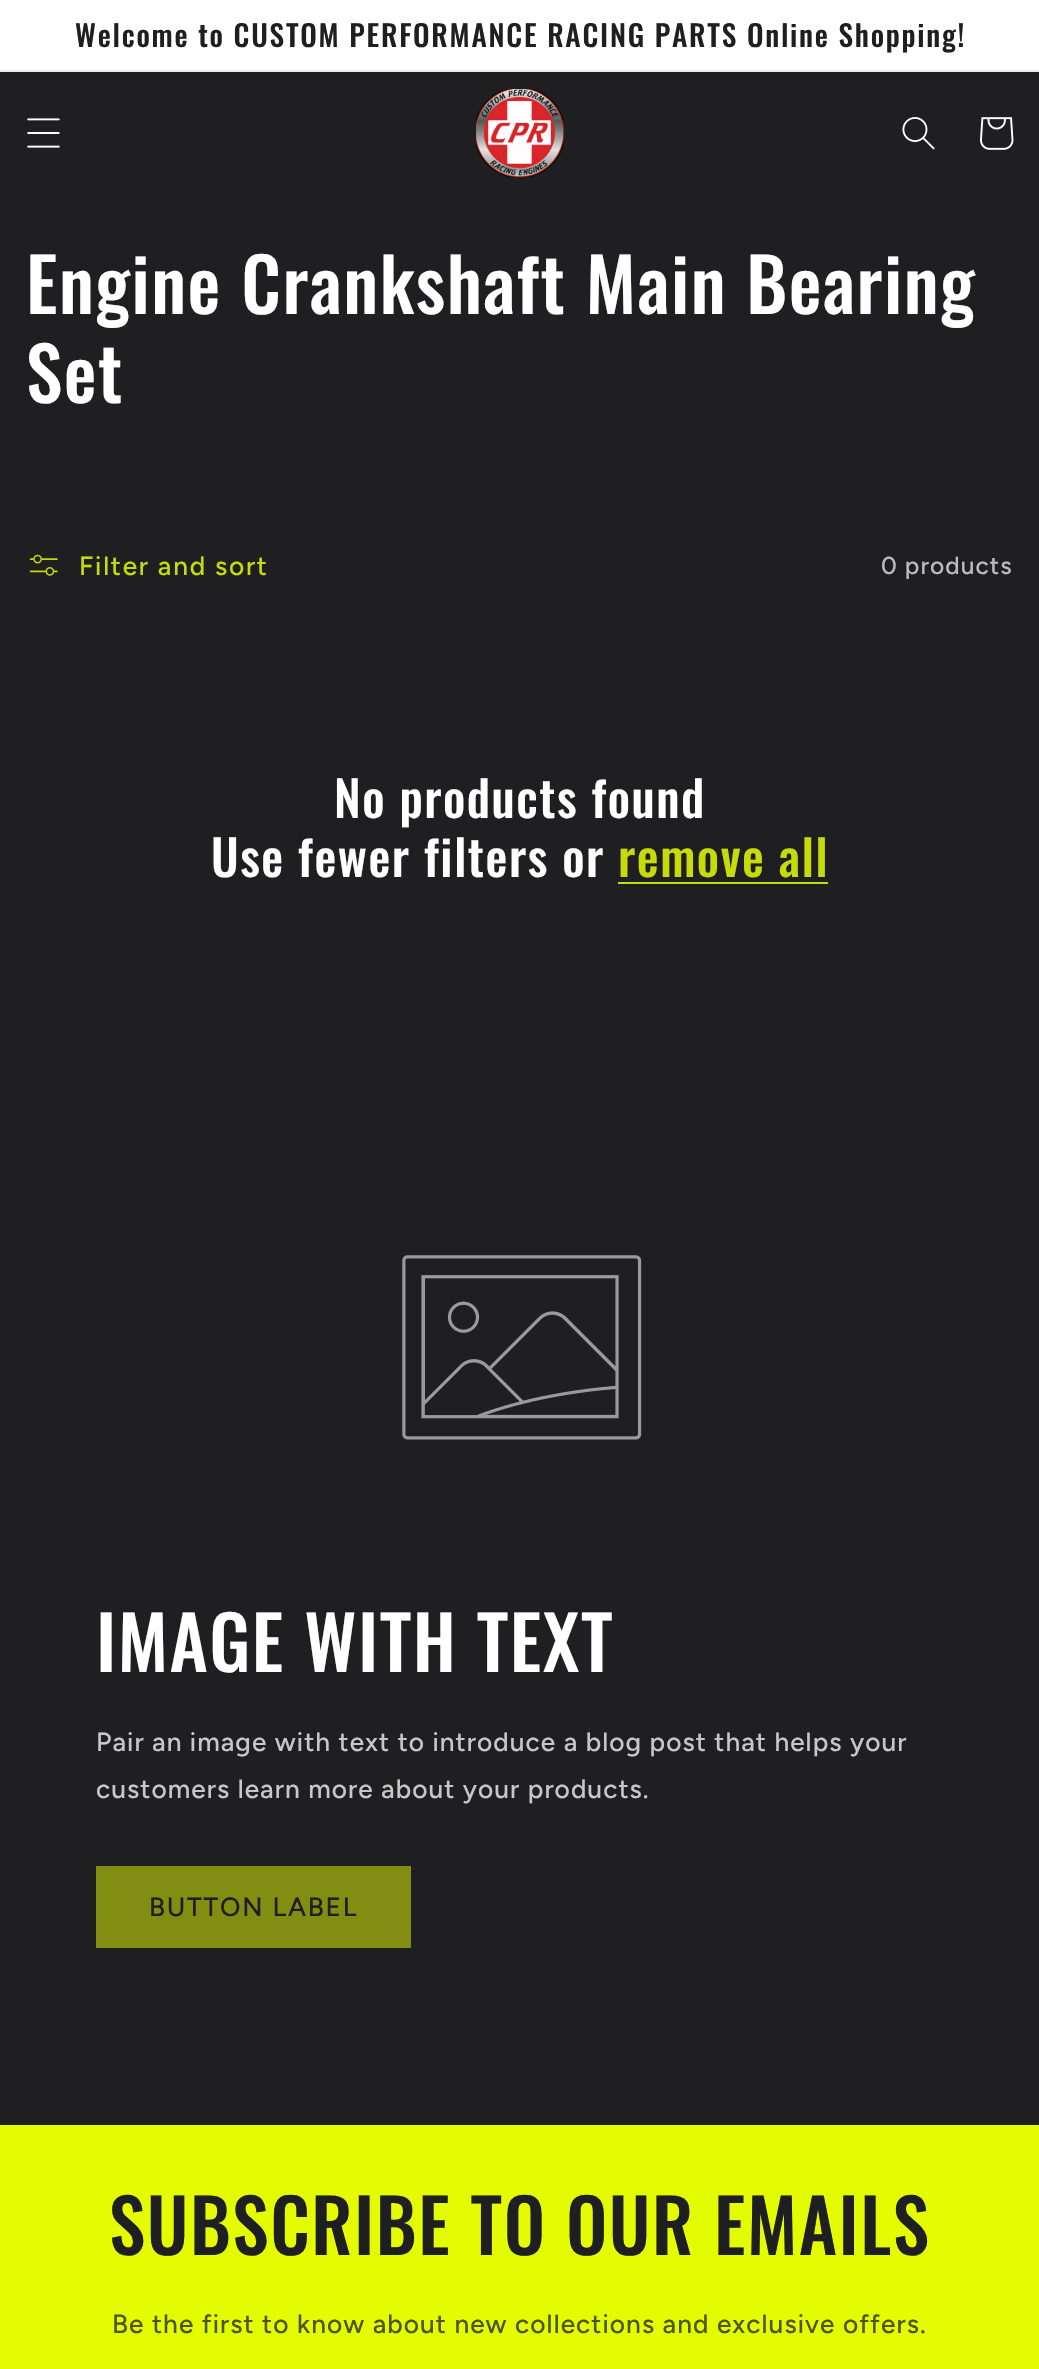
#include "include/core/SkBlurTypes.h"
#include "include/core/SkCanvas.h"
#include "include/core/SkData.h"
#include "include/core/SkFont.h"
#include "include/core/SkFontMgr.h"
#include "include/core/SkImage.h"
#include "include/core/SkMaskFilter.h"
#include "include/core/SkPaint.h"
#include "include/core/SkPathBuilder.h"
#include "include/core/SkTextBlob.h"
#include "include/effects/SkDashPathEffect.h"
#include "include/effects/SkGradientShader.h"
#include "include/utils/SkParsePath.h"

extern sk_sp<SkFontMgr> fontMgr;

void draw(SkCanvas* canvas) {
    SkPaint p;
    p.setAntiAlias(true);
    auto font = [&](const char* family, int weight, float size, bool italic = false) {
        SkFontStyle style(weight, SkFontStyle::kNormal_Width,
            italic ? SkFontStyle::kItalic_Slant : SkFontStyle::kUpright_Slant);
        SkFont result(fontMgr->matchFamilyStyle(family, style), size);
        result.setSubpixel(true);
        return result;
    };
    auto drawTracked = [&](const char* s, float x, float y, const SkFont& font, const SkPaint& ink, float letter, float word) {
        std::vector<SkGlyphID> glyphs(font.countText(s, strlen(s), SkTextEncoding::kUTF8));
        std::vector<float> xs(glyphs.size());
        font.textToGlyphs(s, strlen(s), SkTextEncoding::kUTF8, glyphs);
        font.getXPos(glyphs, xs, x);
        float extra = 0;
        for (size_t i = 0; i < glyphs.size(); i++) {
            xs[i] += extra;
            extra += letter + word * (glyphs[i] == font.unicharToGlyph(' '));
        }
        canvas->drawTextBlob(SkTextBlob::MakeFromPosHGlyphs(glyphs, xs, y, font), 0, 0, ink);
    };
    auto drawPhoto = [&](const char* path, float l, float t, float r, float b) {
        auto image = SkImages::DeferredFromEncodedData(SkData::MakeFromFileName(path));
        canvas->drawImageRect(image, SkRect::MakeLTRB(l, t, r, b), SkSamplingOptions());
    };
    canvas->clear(0xFF1F1F21);
    p.setColor(0xFFFFFFFF);
    canvas->drawRect(SkRect::MakeLTRB(0, 0, 1039, 70), p);
    p.setColor(0xFFEDEDED);
    canvas->drawRect(SkRect::MakeLTRB(0, 70, 1039, 72), p);
    auto font1 = font("Oswald", 500, 29.4f);
    p.setColor(0xFF1F1F21);
    drawTracked("Welcome to CUSTOM PERFORMANCE RACING PARTS Online Shopping!", 75, 47, font1, p, 1.75f, 0);
    drawPhoto("media/1.png", 27, 118, 60, 148);
    drawPhoto("media/2.png", 476, 89, 564, 177);
    drawPhoto("media/3.png", 902, 117, 935, 150);
    drawPhoto("media/4.png", 980, 117, 1014, 150);
    auto font2 = font("Oswald", 500, 73.5f);
    p.setColor(0xFFFFFFFF);
    drawTracked("Engine Crankshaft Main Bearing", 26, 314, font2, p, 1.5f, 0);
    drawTracked("Set", 26, 403, font2, p, 1.5f, 0);
    drawPhoto("media/5.png", 29, 554, 58, 576);
    auto font3 = font("Figtree", 500, 26.25f);
    p.setColor(0xFFC6DB07);
    drawTracked("Filter and sort", 79, 575, font3, p, 1.75f, 0);
    auto font4 = font("Figtree", 500, 24.5f);
    p.setColor(0xFFBCBCBC);
    drawTracked("0 products", 881, 574, font4, p, 1.05f, 0);
    auto font5 = font("Oswald", 500, 49);
    p.setColor(0xFFFFFFFF);
    drawTracked("No products found", 334, 818, font5, p, 1.5f, 0);
    drawTracked("Use fewer filters or", 211, 877, font5, p, 1.5f, 0);
    p.setColor(0xFFC6DB07);
    drawTracked("remove all", 618, 877, font5, p, 1.5f, 0);
    canvas->drawRect(SkRect::MakeLTRB(618, 882, 828, 884), p);
    drawPhoto("media/6.png", 402, 1255, 642, 1440);
    p.setColor(0xFFFFFFFF);
    drawTracked("IMAGE WITH TEXT", 96, 1672, font2, p, 1.5f, 0);
    p.setColor(0xFFC7C7C8);
    drawTracked("Pair an image with text to introduce a blog post that helps your", 96, 1751, font3, p, 1.05f, 0);
    drawTracked("customers learn more about your products.", 96, 1798, font3, p, 1.05f, 0);
    p.setColor(0xFF818E12);
    canvas->drawRect(SkRect::MakeLTRB(96, 1866, 411, 1948), p);
    p.setColor(0xFF1F1F21);
    drawTracked("BUTTON LABEL", 149, 1916, font3, p, 1.75f, 0);
    p.setColor(0xFFE3FC02);
    canvas->drawRect(SkRect::MakeLTRB(0, 2125, 1039, 2369), p);
    p.setColor(0xFF1F1F21);
    drawTracked("SUBSCRIBE TO OUR EMAILS", 109, 2255, font2, p, 1.5f, 0);
    p.setColor(0xFF505619);
    drawTracked("Be the first to know about new collections and exclusive offers.", 112, 2333, font3, p, 1.05f, 0);
}
